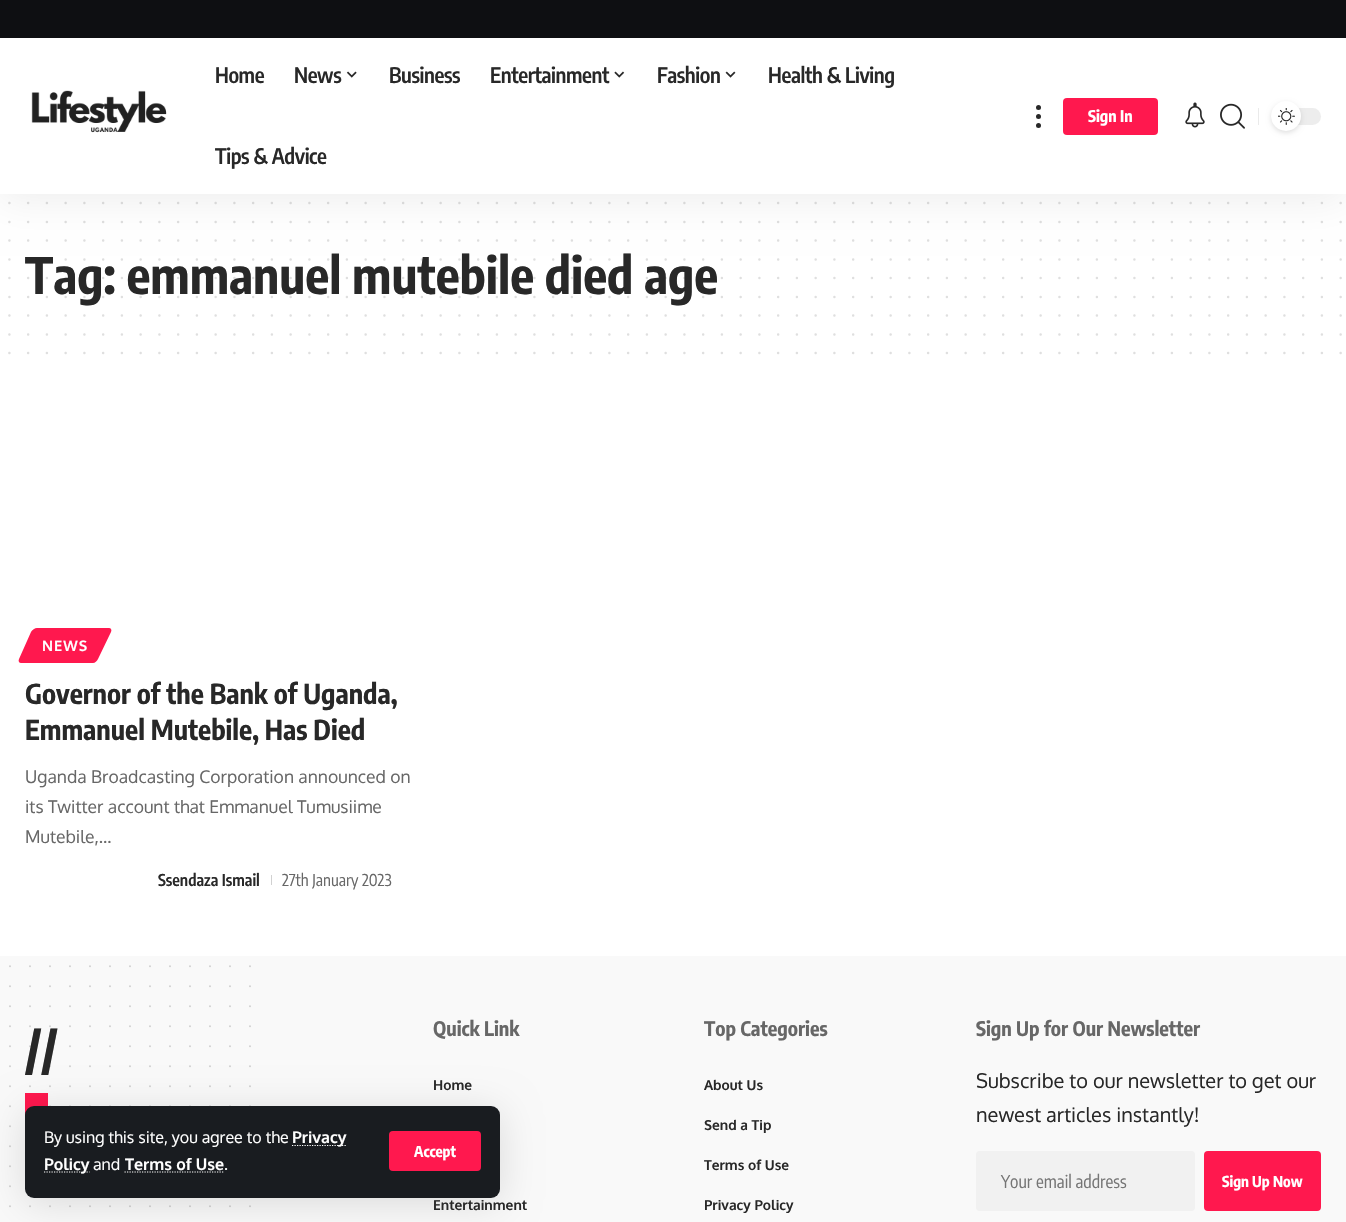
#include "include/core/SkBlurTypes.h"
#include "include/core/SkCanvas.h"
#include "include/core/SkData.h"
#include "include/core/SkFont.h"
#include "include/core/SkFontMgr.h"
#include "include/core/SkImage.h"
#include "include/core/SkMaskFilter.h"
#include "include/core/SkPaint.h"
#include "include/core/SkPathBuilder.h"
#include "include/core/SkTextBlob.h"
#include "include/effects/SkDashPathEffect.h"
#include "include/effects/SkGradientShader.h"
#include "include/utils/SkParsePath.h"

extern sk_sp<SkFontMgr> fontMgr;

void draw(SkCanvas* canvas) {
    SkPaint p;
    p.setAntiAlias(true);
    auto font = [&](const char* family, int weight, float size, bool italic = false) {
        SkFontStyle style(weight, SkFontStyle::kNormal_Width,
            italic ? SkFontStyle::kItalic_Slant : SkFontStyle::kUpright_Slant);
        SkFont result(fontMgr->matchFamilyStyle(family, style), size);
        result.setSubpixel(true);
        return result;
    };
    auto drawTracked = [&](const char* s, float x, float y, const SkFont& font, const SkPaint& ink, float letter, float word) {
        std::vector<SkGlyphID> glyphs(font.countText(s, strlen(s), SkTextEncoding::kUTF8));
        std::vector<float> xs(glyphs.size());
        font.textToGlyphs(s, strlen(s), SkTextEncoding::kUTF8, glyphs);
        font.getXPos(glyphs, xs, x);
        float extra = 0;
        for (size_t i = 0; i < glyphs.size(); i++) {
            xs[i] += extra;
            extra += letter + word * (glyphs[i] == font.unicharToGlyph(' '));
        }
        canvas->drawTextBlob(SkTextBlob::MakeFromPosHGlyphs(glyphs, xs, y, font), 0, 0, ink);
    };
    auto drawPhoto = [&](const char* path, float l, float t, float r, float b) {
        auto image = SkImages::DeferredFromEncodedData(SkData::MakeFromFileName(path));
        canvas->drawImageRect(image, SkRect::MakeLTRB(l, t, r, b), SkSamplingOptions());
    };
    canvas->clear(0xFFFFFFFF);
    p.setColor(0xFF0E0F12);
    canvas->drawRect(SkRect::MakeLTRB(0, 0, 1346, 38), p);
    p.setStyle(SkPaint::kStroke_Style);
    p.setStrokeWidth(2.5f);
    p.setStrokeCap(SkPaint::kRound_Cap);
    p.setColor(0xFFDFDFDF);
    p.setPathEffect(SkDashPathEffect::Make({{0, 18.75f}}, 0));
    canvas->drawPath(SkPathBuilder().moveTo(9.4f, 203.1f).lineTo(1340.9f, 203.1f).detach(), p);
    p.setPathEffect(nullptr);
    p.setPathEffect(SkDashPathEffect::Make({{0, 18.75f}}, 0));
    canvas->drawPath(SkPathBuilder().moveTo(9.4f, 221.9f).lineTo(1340.9f, 221.9f).detach(), p);
    p.setPathEffect(nullptr);
    p.setPathEffect(SkDashPathEffect::Make({{0, 18.75f}}, 0));
    canvas->drawPath(SkPathBuilder().moveTo(9.4f, 240.6f).lineTo(1340.9f, 240.6f).detach(), p);
    p.setPathEffect(nullptr);
    canvas->save();
    canvas->clipRect(SkRect::MakeLTRB(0, 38, 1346, 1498));
    p.setStyle(SkPaint::kFill_Style);
    p.setColor(0x12000000);
    p.setMaskFilter(SkMaskFilter::MakeBlur(kNormal_SkBlurStyle, 19));
    canvas->drawRect(SkRect::MakeLTRB(0, 43, 1346, 199), p);
    p.setMaskFilter(nullptr);
    canvas->restore();
    p.setColor(0xFFFFFFFF);
    canvas->drawRect(SkRect::MakeLTRB(0, 38, 1346, 194), p);
    drawPhoto("media/1.png", 31, 90, 167, 133);
    auto font1 = font("Encode Sans Condensed", 600, 21.25f);
    p.setColor(0xFF282828);
    drawTracked("Home", 215, 83, font1, p, -0.4f, 0);
    drawTracked("News", 294, 83, font1, p, -0.4f, 0);
    drawPhoto("media/2.png", 346, 71, 357, 78);
    drawTracked("Business", 389, 83, font1, p, -0.4f, 0);
    drawTracked("Entertainment", 490, 83, font1, p, -0.4f, 0);
    drawPhoto("media/3.png", 614, 71, 625, 78);
    drawTracked("Fashion", 657, 83, font1, p, -0.4f, 0);
    drawPhoto("media/4.png", 725, 71, 736, 78);
    drawTracked("Health & Living", 768, 83, font1, p, -0.4f, 0);
    drawTracked("Tips & Advice", 215, 164, font1, p, -0.4f, 0);
    canvas->drawCircle(1038.5f, 107.5f, 2.5f, p);
    canvas->drawCircle(1038.5f, 116.5f, 2.5f, p);
    canvas->drawCircle(1038.5f, 125.5f, 2.5f, p);
    p.setColor(0xFFFF184E);
    canvas->drawRoundRect(SkRect::MakeLTRB(1063, 98, 1158, 135), 4, 4, p);
    auto font2 = font("Encode Sans Condensed", 700, 16);
    p.setColor(0xFFFFFFFF);
    canvas->drawString("Sign In", 1088, 122, font2, p);
    drawPhoto("media/5.png", 1185, 102, 1205, 128);
    drawPhoto("media/6.png", 1220, 103, 1245, 129);
    p.setColor(0xFFEAEAEA);
    canvas->drawRect(SkRect::MakeLTRB(1258, 108, 1259, 125), p);
    p.setColor(0xFFEDEDED);
    canvas->drawRoundRect(SkRect::MakeLTRB(1271, 108, 1321, 125), 8.5f, 8.5f, p);
    p.setColor(0x1F000000);
    p.setMaskFilter(SkMaskFilter::MakeBlur(kNormal_SkBlurStyle, 2.5f));
    canvas->drawRoundRect(SkRect::MakeLTRB(1271, 103, 1301, 133), 15, 15, p);
    p.setMaskFilter(nullptr);
    p.setColor(0xFFFFFFFF);
    canvas->drawCircle(1286, 116, 15, p);
    drawPhoto("media/7.png", 1278, 108, 1295, 125);
    p.setColor(0xFFF9F9F9);
    canvas->drawRect(SkRect::MakeLTRB(0, 956, 1346, 1222), p);
    p.setStyle(SkPaint::kStroke_Style);
    p.setStrokeWidth(1.9f);
    p.setColor(0xFFCFCFCF);
    p.setPathEffect(SkDashPathEffect::Make({{0, 20}}, 0));
    canvas->drawPath(SkPathBuilder().moveTo(10, 966.2f).lineTo(10, 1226.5f).detach(), p);
    p.setPathEffect(nullptr);
    p.setPathEffect(SkDashPathEffect::Make({{0, 20}}, 0));
    canvas->drawPath(SkPathBuilder().moveTo(30, 966.2f).lineTo(30, 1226.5f).detach(), p);
    p.setPathEffect(nullptr);
    p.setPathEffect(SkDashPathEffect::Make({{0, 20}}, 0));
    canvas->drawPath(SkPathBuilder().moveTo(50, 966.2f).lineTo(50, 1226.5f).detach(), p);
    p.setPathEffect(nullptr);
    p.setPathEffect(SkDashPathEffect::Make({{0, 20}}, 0));
    canvas->drawPath(SkPathBuilder().moveTo(70, 966.2f).lineTo(70, 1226.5f).detach(), p);
    p.setPathEffect(nullptr);
    p.setPathEffect(SkDashPathEffect::Make({{0, 20}}, 0));
    canvas->drawPath(SkPathBuilder().moveTo(90, 966.2f).lineTo(90, 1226.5f).detach(), p);
    p.setPathEffect(nullptr);
    p.setPathEffect(SkDashPathEffect::Make({{0, 20}}, 0));
    canvas->drawPath(SkPathBuilder().moveTo(110, 966.2f).lineTo(110, 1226.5f).detach(), p);
    p.setPathEffect(nullptr);
    p.setPathEffect(SkDashPathEffect::Make({{0, 20}}, 0));
    canvas->drawPath(SkPathBuilder().moveTo(130, 966.2f).lineTo(130, 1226.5f).detach(), p);
    p.setPathEffect(nullptr);
    p.setPathEffect(SkDashPathEffect::Make({{0, 20}}, 0));
    canvas->drawPath(SkPathBuilder().moveTo(150, 966.2f).lineTo(150, 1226.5f).detach(), p);
    p.setPathEffect(nullptr);
    p.setPathEffect(SkDashPathEffect::Make({{0, 20}}, 0));
    canvas->drawPath(SkPathBuilder().moveTo(170, 966.2f).lineTo(170, 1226.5f).detach(), p);
    p.setPathEffect(nullptr);
    p.setPathEffect(SkDashPathEffect::Make({{0, 20}}, 0));
    canvas->drawPath(SkPathBuilder().moveTo(190, 966.2f).lineTo(190, 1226.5f).detach(), p);
    p.setPathEffect(nullptr);
    p.setPathEffect(SkDashPathEffect::Make({{0, 20}}, 0));
    canvas->drawPath(SkPathBuilder().moveTo(210, 966.2f).lineTo(210, 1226.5f).detach(), p);
    p.setPathEffect(nullptr);
    p.setPathEffect(SkDashPathEffect::Make({{0, 20}}, 0));
    canvas->drawPath(SkPathBuilder().moveTo(230, 966.2f).lineTo(230, 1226.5f).detach(), p);
    p.setPathEffect(nullptr);
    p.setPathEffect(SkDashPathEffect::Make({{0, 20}}, 0));
    canvas->drawPath(SkPathBuilder().moveTo(250, 966.2f).lineTo(250, 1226.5f).detach(), p);
    p.setPathEffect(nullptr);
    p.setStyle(SkPaint::kFill_Style);
    p.setColor(0xFFFF184E);
    canvas->drawRect(SkRect::MakeLTRB(25, 1093, 48, 1115), p);
    p.setColor(0x1F000000);
    p.setMaskFilter(SkMaskFilter::MakeBlur(kNormal_SkBlurStyle, 19));
    canvas->drawRoundRect(SkRect::MakeLTRB(25, 1111, 500, 1203), 9, 9, p);
    p.setMaskFilter(nullptr);
    p.setColor(0xFF191C20);
    canvas->drawRoundRect(SkRect::MakeLTRB(25, 1106, 500, 1198), 9, 9, p);
    auto font3 = font("Oxygen", 400, 16);
    p.setColor(0xFFFFFFFF);
    canvas->drawString("By using this site, you agree to the", 44, 1143, font3, p);
    p.setStyle(SkPaint::kStroke_Style);
    p.setStrokeWidth(1.2f);
    p.setStrokeCap(SkPaint::kButt_Cap);
    p.setPathEffect(SkDashPathEffect::Make({{1.25f, 1.25f}}, 0));
    canvas->drawPath(SkPathBuilder().moveTo(292, 1145.5f).lineTo(346.5f, 1145.5f).detach(), p);
    p.setPathEffect(nullptr);
    auto font4 = font("Oxygen", 700, 16);
    p.setStyle(SkPaint::kFill_Style);
    canvas->drawString("Privacy", 292, 1143, font4, p);
    p.setStyle(SkPaint::kStroke_Style);
    p.setPathEffect(SkDashPathEffect::Make({{1.25f, 1.25f}}, 0));
    canvas->drawPath(SkPathBuilder().moveTo(44, 1172).lineTo(89.5f, 1172).detach(), p);
    p.setPathEffect(nullptr);
    p.setStyle(SkPaint::kFill_Style);
    canvas->drawString("Policy", 44, 1170, font4, p);
    canvas->drawString("and", 93, 1170, font3, p);
    canvas->drawString("Terms of Use", 125, 1170, font4, p);
    p.setStyle(SkPaint::kStroke_Style);
    p.setPathEffect(SkDashPathEffect::Make({{1.25f, 1.25f}}, 0));
    canvas->drawPath(SkPathBuilder().moveTo(124.5f, 1172).lineTo(223.5f, 1172).detach(), p);
    p.setPathEffect(nullptr);
    p.setStyle(SkPaint::kFill_Style);
    canvas->drawString(".", 224, 1170, font3, p);
    p.setColor(0xFFFF184E);
    canvas->drawRoundRect(SkRect::MakeLTRB(389, 1131, 481, 1171), 4, 4, p);
    auto font5 = font("Encode Sans Condensed", 700, 15);
    p.setColor(0xFFFFFFFF);
    canvas->drawString("Accept", 414, 1157, font5, p);
    auto font6 = font("Encode Sans Condensed", 700, 50);
    p.setColor(0xFF282828);
    canvas->drawString("Tag: emmanuel mutebile died age", 25, 294, font6, p);
    p.setStyle(SkPaint::kStroke_Style);
    p.setStrokeWidth(2.5f);
    p.setStrokeCap(SkPaint::kRound_Cap);
    p.setColor(0x26282828);
    p.setPathEffect(SkDashPathEffect::Make({{0, 18.75f}}, 0));
    canvas->drawPath(SkPathBuilder().moveTo(9.4f, 259.4f).lineTo(1340.9f, 259.4f).detach(), p);
    p.setPathEffect(nullptr);
    p.setPathEffect(SkDashPathEffect::Make({{0, 18.75f}}, 0));
    canvas->drawPath(SkPathBuilder().moveTo(9.4f, 278.1f).lineTo(1340.9f, 278.1f).detach(), p);
    p.setPathEffect(nullptr);
    p.setPathEffect(SkDashPathEffect::Make({{0, 18.75f}}, 0));
    canvas->drawPath(SkPathBuilder().moveTo(9.4f, 296.9f).lineTo(1340.9f, 296.9f).detach(), p);
    p.setPathEffect(nullptr);
    p.setColor(0xFFDFDFDF);
    p.setPathEffect(SkDashPathEffect::Make({{0, 18.75f}}, 0));
    canvas->drawPath(SkPathBuilder().moveTo(9.4f, 315.6f).lineTo(1340.9f, 315.6f).detach(), p);
    p.setPathEffect(nullptr);
    p.setPathEffect(SkDashPathEffect::Make({{0, 18.75f}}, 0));
    canvas->drawPath(SkPathBuilder().moveTo(9.4f, 334.4f).lineTo(1340.9f, 334.4f).detach(), p);
    p.setPathEffect(nullptr);
    p.setPathEffect(SkDashPathEffect::Make({{0, 18.75f}}, 0));
    canvas->drawPath(SkPathBuilder().moveTo(9.4f, 353.1f).lineTo(1340.9f, 353.1f).detach(), p);
    p.setPathEffect(nullptr);
    p.setStyle(SkPaint::kFill_Style);
    p.setColor(0xFFFF184E);
    canvas->drawPath(SkPathBuilder().moveTo(37, 628).lineTo(109, 628).cubicTo(111, 628, 112, 630, 111, 632).lineTo(98, 659).cubicTo(97, 661, 95, 663, 93, 663).lineTo(21, 663).cubicTo(19, 663, 18, 661, 19, 659).lineTo(31, 632).cubicTo(32, 630, 35, 628, 37, 628).close().detach(), p);
    auto font7 = font("Oxygen", 700, 14.5f);
    p.setColor(0xFFFFFFFF);
    drawTracked("NEWS", 42, 651, font7, p, 1, 0);
    auto font8 = font("Encode Sans Condensed", 700, 27.5f);
    p.setColor(0xFF282828);
    canvas->drawString("Governor of the Bank of Uganda,", 25, 704, font8, p);
    canvas->drawString("Emmanuel Mutebile, Has Died", 25, 740, font8, p);
    auto font9 = font("Oxygen", 400, 17.5f);
    p.setColor(0xFF676767);
    {
        const struct { const char* s; float x, y; } items[] = {
            {"Uganda Broadcasting Corporation announced on", 25, 783},
            {"its Twitter account that Emmanuel Tumusiime", 25, 813},
            {"Mutebile,…", 25, 843},
        };
        for (auto [s, x, y] : items) {
            canvas->drawString(s, x, y, font9, p);
        }
    }
    auto font10 = font("Encode Sans Condensed", 600, 16.25f);
    p.setColor(0xFF282828);
    canvas->drawString("Ssendaza Ismail", 158, 886, font10, p);
    p.setColor(0xFFD1D1D1);
    canvas->drawRect(SkRect::MakeLTRB(271, 875, 272, 885), p);
    auto font11 = font("Encode Sans Condensed", 400, 16.25f);
    p.setColor(0xFF676767);
    canvas->drawString("27th January 2023", 282, 886, font11, p);
    p.setColor(0xFF282828);
    canvas->drawString("//", 25, 1069, font6, p);
    auto font12 = font("Encode Sans Condensed", 700, 20);
    p.setColor(0xFF676767);
    canvas->drawString("Quick Link", 433, 1036, font12, p);
    auto font13 = font("Oxygen", 700, 13.75f);
    p.setColor(0xFF282828);
    canvas->drawString("Home", 433, 1090, font13, p);
    canvas->drawString("Entertainment", 433, 1210, font13, p);
    p.setColor(0xFF676767);
    canvas->drawString("Top Categories", 704, 1036, font12, p);
    p.setColor(0xFF282828);
    {
        const struct { const char* s; float x, y; } items[] = {
            {"About Us", 704, 1090},
            {"Send a Tip", 704, 1130},
            {"Terms of Use", 704, 1170},
            {"Privacy Policy", 704, 1210},
        };
        for (auto [s, x, y] : items) {
            canvas->drawString(s, x, y, font13, p);
        }
    }
    p.setColor(0xFF676767);
    canvas->drawString("Sign Up for Our Newsletter", 976, 1036, font12, p);
    auto font14 = font("Oxygen", 400, 20);
    p.setColor(0xFF282828);
    canvas->drawString("Subscribe to our newsletter to get our", 976, 1088, font14, p);
    canvas->drawString("newest articles instantly!", 976, 1122, font14, p);
    p.setColor(0xFFF1F1F1);
    canvas->drawRoundRect(SkRect::MakeLTRB(976, 1151, 1195, 1211), 4, 4, p);
    auto font15 = font("Encode Sans Condensed", 400, 17.5f);
    p.setColor(0xFF757575);
    canvas->drawString("Your email address", 1001, 1188, font15, p);
    p.setColor(0xFFFF184E);
    canvas->drawRoundRect(SkRect::MakeLTRB(1204, 1151, 1321, 1211), 4, 4, p);
    p.setColor(0xFFFFFFFF);
    canvas->drawString("Sign Up Now", 1222, 1187, font5, p);
}
